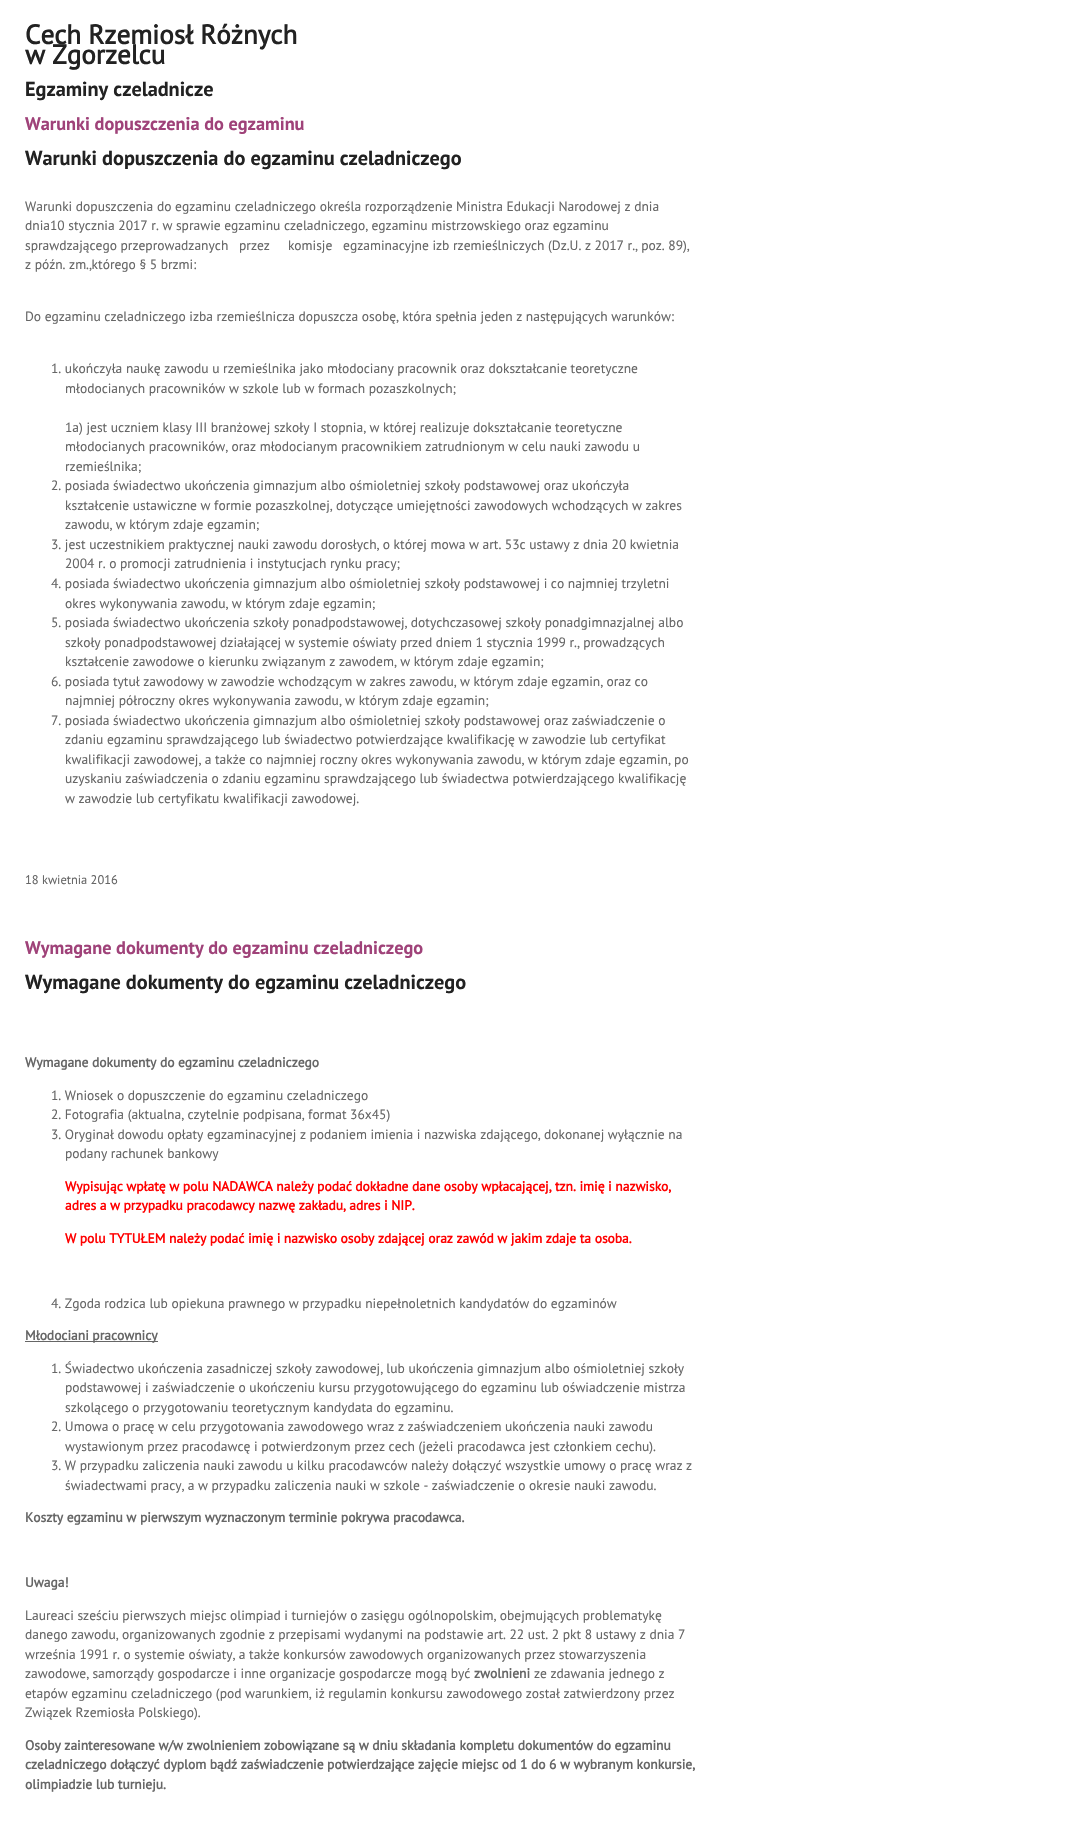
#include "include/core/SkBlurTypes.h"
#include "include/core/SkCanvas.h"
#include "include/core/SkData.h"
#include "include/core/SkFont.h"
#include "include/core/SkFontMgr.h"
#include "include/core/SkImage.h"
#include "include/core/SkMaskFilter.h"
#include "include/core/SkPaint.h"
#include "include/core/SkPathBuilder.h"
#include "include/core/SkTextBlob.h"
#include "include/effects/SkDashPathEffect.h"
#include "include/effects/SkGradientShader.h"
#include "include/utils/SkParsePath.h"

extern sk_sp<SkFontMgr> fontMgr;

void draw(SkCanvas* canvas) {
    SkPaint p;
    p.setAntiAlias(true);
    auto font = [&](const char* family, int weight, float size, bool italic = false) {
        SkFontStyle style(weight, SkFontStyle::kNormal_Width,
            italic ? SkFontStyle::kItalic_Slant : SkFontStyle::kUpright_Slant);
        SkFont result(fontMgr->matchFamilyStyle(family, style), size);
        result.setSubpixel(true);
        return result;
    };
    canvas->clear(0xFFFFFFFF);
    auto font1 = font("PT Sans", 700, 26);
    p.setColor(0xFF222222);
    canvas->drawString("Cech Rzemiosł Różnych", 25, 44, font1, p);
    canvas->drawString("w Zgorzelcu", 25, 64, font1, p);
    auto font2 = font("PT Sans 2", 700, 19.5f);
    canvas->drawString("Egzaminy czeladnicze", 25, 96, font2, p);
    auto font3 = font("PT Sans 2", 700, 17.6f);
    p.setColor(0xFF9F4279);
    canvas->drawString("Warunki dopuszczenia do egzaminu", 25, 130, font3, p);
    p.setColor(0xFF222222);
    canvas->drawString("Warunki dopuszczenia do egzaminu czeladniczego", 25, 165, font2, p);
    auto font4 = font("PT Sans", 400, 13);
    p.setColor(0xFF666666);
    {
        const struct { const char* s; float x, y; } items[] = {
            {"Warunki dopuszczenia do egzaminu czeladniczego określa rozporządzenie Ministra Edukacji Narodowej z dnia", 25, 211},
            {"dnia10 stycznia 2017 r. w sprawie egzaminu czeladniczego, egzaminu mistrzowskiego oraz egzaminu", 25, 230},
            {"sprawdzającego przeprowadzanych   przez     komisje   egzaminacyjne izb rzemieślniczych (Dz.U. z 2017 r., poz. 89),", 25, 250},
            {"z późn. zm.,którego § 5 brzmi:", 25, 269},
            {"Do egzaminu czeladniczego izba rzemieślnicza dopuszcza osobę, która spełnia jeden z następujących warunków:", 25, 321},
            {"1. ukończyła naukę zawodu u rzemieślnika jako młodociany pracownik oraz dokształcanie teoretyczne", 51, 373},
            {"młodocianych pracowników w szkole lub w formach pozaszkolnych;", 65, 393},
            {"1a) jest uczniem klasy III branżowej szkoły I stopnia, w której realizuje dokształcanie teoretyczne", 65, 432},
            {"młodocianych pracowników, oraz młodocianym pracownikiem zatrudnionym w celu nauki zawodu u", 65, 451},
            {"rzemieślnika;", 65, 471},
            {"2. posiada świadectwo ukończenia gimnazjum albo ośmioletniej szkoły podstawowej oraz ukończyła", 51, 490},
            {"kształcenie ustawiczne w formie pozaszkolnej, dotyczące umiejętności zawodowych wchodzących w zakres", 65, 510},
            {"zawodu, w którym zdaje egzamin;", 65, 529},
            {"3. jest uczestnikiem praktycznej nauki zawodu dorosłych, o której mowa w art. 53c ustawy z dnia 20 kwietnia", 51, 549},
            {"2004 r. o promocji zatrudnienia i instytucjach rynku pracy;", 65, 568},
            {"4. posiada świadectwo ukończenia gimnazjum albo ośmioletniej szkoły podstawowej i co najmniej trzyletni", 51, 588},
            {"okres wykonywania zawodu, w którym zdaje egzamin;", 65, 608},
            {"5. posiada świadectwo ukończenia szkoły ponadpodstawowej, dotychczasowej szkoły ponadgimnazjalnej albo", 51, 627},
            {"szkoły ponadpodstawowej działającej w systemie oświaty przed dniem 1 stycznia 1999 r., prowadzących", 65, 647},
            {"kształcenie zawodowe o kierunku związanym z zawodem, w którym zdaje egzamin;", 65, 666},
            {"6. posiada tytuł zawodowy w zawodzie wchodzącym w zakres zawodu, w którym zdaje egzamin, oraz co", 51, 686},
            {"najmniej półroczny okres wykonywania zawodu, w którym zdaje egzamin;", 65, 705},
            {"7. posiada świadectwo ukończenia gimnazjum albo ośmioletniej szkoły podstawowej oraz zaświadczenie o", 51, 725},
            {"zdaniu egzaminu sprawdzającego lub świadectwo potwierdzające kwalifikację w zawodzie lub certyfikat", 65, 744},
            {"kwalifikacji zawodowej, a także co najmniej roczny okres wykonywania zawodu, w którym zdaje egzamin, po", 65, 764},
            {"uzyskaniu zaświadczenia o zdaniu egzaminu sprawdzającego lub świadectwa potwierdzającego kwalifikację", 65, 783},
            {"w zawodzie lub certyfikatu kwalifikacji zawodowej.", 65, 803},
        };
        for (auto [s, x, y] : items) {
            canvas->drawString(s, x, y, font4, p);
        }
    }
    auto font5 = font("PT Sans", 400, 12);
    canvas->drawString("18 kwietnia 2016", 25, 884, font5, p);
    p.setColor(0xFF9F4279);
    canvas->drawString("Wymagane dokumenty do egzaminu czeladniczego", 25, 954, font3, p);
    p.setColor(0xFF222222);
    canvas->drawString("Wymagane dokumenty do egzaminu czeladniczego", 25, 989, font2, p);
    auto font6 = font("PT Sans", 700, 13);
    p.setColor(0xFF666666);
    canvas->drawString("Wymagane dokumenty do egzaminu czeladniczego", 25, 1067, font6, p);
    {
        const struct { const char* s; float x, y; } items[] = {
            {"1. Wniosek o dopuszczenie do egzaminu czeladniczego", 51, 1100},
            {"2. Fotografia (aktualna, czytelnie podpisana, format 36x45)", 51, 1119},
            {"3. Oryginał dowodu opłaty egzaminacyjnej z podaniem imienia i nazwiska zdającego, dokonanej wyłącznie na", 51, 1139},
            {"podany rachunek bankowy", 65, 1158},
        };
        for (auto [s, x, y] : items) {
            canvas->drawString(s, x, y, font4, p);
        }
    }
    p.setColor(0xFFFF0000);
    {
        const struct { const char* s; float x, y; } items[] = {
            {"Wypisując wpłatę w polu NADAWCA należy podać dokładne dane osoby wpłacającej, tzn. imię i nazwisko,", 65, 1191},
            {"adres a w przypadku pracodawcy nazwę zakładu, adres i NIP.", 65, 1210},
            {"W polu TYTUŁEM należy podać imię i nazwisko osoby zdającej oraz zawód w jakim zdaje ta osoba.", 65, 1243},
        };
        for (auto [s, x, y] : items) {
            canvas->drawString(s, x, y, font6, p);
        }
    }
    p.setColor(0xFF666666);
    canvas->drawString("4. Zgoda rodzica lub opiekuna prawnego w przypadku niepełnoletnich kandydatów do egzaminów", 51, 1308, font4, p);
    canvas->drawRect(SkRect::MakeLTRB(25, 1341, 158, 1342), p);
    canvas->drawString("Młodociani pracownicy", 25, 1340, font6, p);
    {
        const struct { const char* s; float x, y; } items[] = {
            {"1. Świadectwo ukończenia zasadniczej szkoły zawodowej, lub ukończenia gimnazjum albo ośmioletniej szkoły", 51, 1373},
            {"podstawowej i zaświadczenie o ukończeniu kursu przygotowującego do egzaminu lub oświadczenie mistrza", 65, 1392},
            {"szkolącego o przygotowaniu teoretycznym kandydata do egzaminu.", 65, 1412},
            {"2. Umowa o pracę w celu przygotowania zawodowego wraz z zaświadczeniem ukończenia nauki zawodu", 51, 1431},
            {"wystawionym przez pracodawcę i potwierdzonym przez cech (jeżeli pracodawca jest członkiem cechu).", 65, 1451},
            {"3. W przypadku zaliczenia nauki zawodu u kilku pracodawców należy dołączyć wszystkie umowy o pracę wraz z", 51, 1470},
            {"świadectwami pracy, a w przypadku zaliczenia nauki w szkole - zaświadczenie o okresie nauki zawodu.", 65, 1490},
        };
        for (auto [s, x, y] : items) {
            canvas->drawString(s, x, y, font4, p);
        }
    }
    canvas->drawString("Koszty egzaminu w pierwszym wyznaczonym terminie pokrywa pracodawca.", 25, 1522, font6, p);
    canvas->drawString("Uwaga!", 25, 1587, font6, p);
    {
        const struct { const char* s; float x, y; } items[] = {
            {"Laureaci sześciu pierwszych miejsc olimpiad i turniejów o zasięgu ogólnopolskim, obejmujących problematykę", 25, 1620},
            {"danego zawodu, organizowanych zgodnie z przepisami wydanymi na podstawie art. 22 ust. 2 pkt 8 ustawy z dnia 7", 25, 1639},
            {"września 1991 r. o systemie oświaty, a także konkursów zawodowych organizowanych przez stowarzyszenia", 25, 1659},
            {"zawodowe, samorządy gospodarcze i inne organizacje gospodarcze mogą być", 25, 1678},
        };
        for (auto [s, x, y] : items) {
            canvas->drawString(s, x, y, font4, p);
        }
    }
    canvas->drawString("zwolnieni", 474, 1678, font6, p);
    {
        const struct { const char* s; float x, y; } items[] = {
            {"ze zdawania jednego z", 534, 1678},
            {"etapów egzaminu czeladniczego (pod warunkiem, iż regulamin konkursu zawodowego został zatwierdzony przez", 25, 1698},
            {"Związek Rzemiosła Polskiego).", 25, 1717},
        };
        for (auto [s, x, y] : items) {
            canvas->drawString(s, x, y, font4, p);
        }
    }
    {
        const struct { const char* s; float x, y; } items[] = {
            {"Osoby zainteresowane w/w zwolnieniem zobowiązane są w dniu składania kompletu dokumentów do egzaminu", 25, 1750},
            {"czeladniczego dołączyć dyplom bądź zaświadczenie potwierdzające zajęcie miejsc od 1 do 6 w wybranym konkursie,", 25, 1769},
            {"olimpiadzie lub turnieju.", 25, 1789},
        };
        for (auto [s, x, y] : items) {
            canvas->drawString(s, x, y, font6, p);
        }
    }
}
